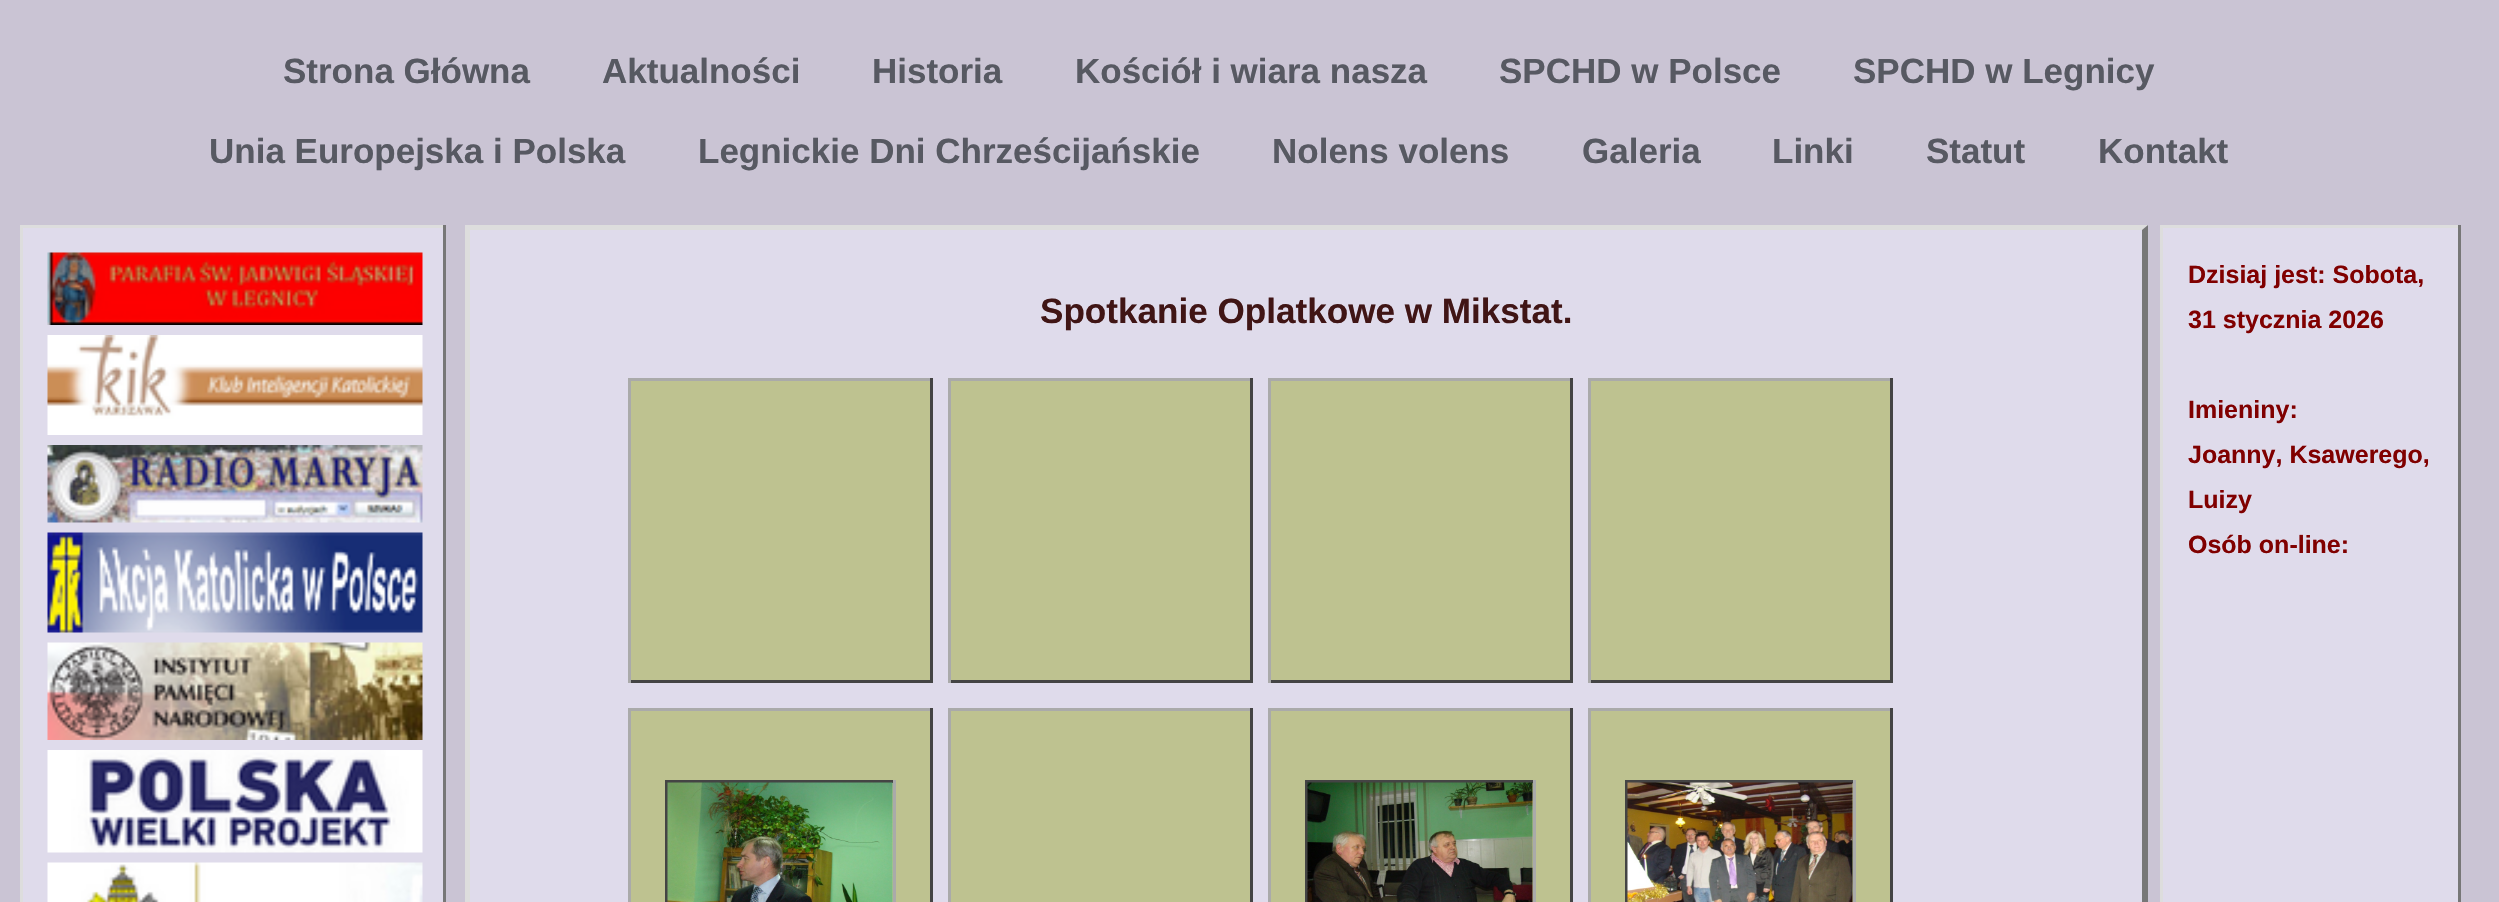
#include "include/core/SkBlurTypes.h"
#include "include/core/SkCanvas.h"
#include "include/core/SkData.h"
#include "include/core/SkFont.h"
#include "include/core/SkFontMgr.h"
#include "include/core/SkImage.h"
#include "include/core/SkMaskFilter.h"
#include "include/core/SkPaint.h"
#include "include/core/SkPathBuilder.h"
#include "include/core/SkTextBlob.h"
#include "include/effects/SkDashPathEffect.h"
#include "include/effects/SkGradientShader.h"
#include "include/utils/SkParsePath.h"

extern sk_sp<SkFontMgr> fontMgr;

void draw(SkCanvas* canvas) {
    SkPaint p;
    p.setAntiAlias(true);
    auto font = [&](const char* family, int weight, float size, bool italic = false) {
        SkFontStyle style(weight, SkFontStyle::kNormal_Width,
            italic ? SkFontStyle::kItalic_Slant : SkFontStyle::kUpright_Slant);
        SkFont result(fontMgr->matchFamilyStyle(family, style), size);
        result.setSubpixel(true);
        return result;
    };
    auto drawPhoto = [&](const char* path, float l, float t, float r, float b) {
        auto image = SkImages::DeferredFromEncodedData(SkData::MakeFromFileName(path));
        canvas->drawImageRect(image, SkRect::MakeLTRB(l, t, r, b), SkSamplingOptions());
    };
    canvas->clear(0xFFCAC4D4);
    auto font1 = font("Liberation Sans", 700, 35);
    p.setColor(0xFF575962);
    {
        const struct { const char* s; float x, y; } items[] = {
            {"Strona Główna", 283, 83},
            {"Aktualności", 602, 83},
            {"Historia", 872, 83},
            {"Kościół i wiara nasza", 1075, 83},
            {"SPCHD w Polsce", 1499, 83},
            {"SPCHD w Legnicy", 1853, 83},
            {"Unia Europejska i Polska", 209, 163},
            {"Legnickie Dni Chrześcijańskie", 698, 163},
            {"Nolens volens", 1272, 163},
            {"Galeria", 1582, 163},
            {"Linki", 1772, 163},
            {"Statut", 1926, 163},
            {"Kontakt", 2098, 163},
        };
        for (auto [s, x, y] : items) {
            canvas->drawString(s, x, y, font1, p);
        }
    }
    {
        const struct { float l, t, r, b; SkColor color; } items[] = {
            {23, 228, 443, 902, 0xFFDFDBEB},
            {20, 225, 445, 228, 0xFFDDDDDD},
            {443, 225, 446, 902, 0xFF777777},
            {20, 225, 23, 902, 0xFFDDDDDD},
        };
        for (auto [l, t, r, b, color] : items) {
            p.setColor(color);
            canvas->drawRect(SkRect::MakeLTRB(l, t, r, b), p);
        }
    }
    drawPhoto("media/1.png", 47, 252, 423, 325);
    drawPhoto("media/2.png", 47, 335, 423, 435);
    drawPhoto("media/3.png", 47, 445, 423, 523);
    drawPhoto("media/4.png", 47, 532, 423, 633);
    drawPhoto("media/5.png", 47, 642, 423, 740);
    drawPhoto("media/6.png", 47, 750, 423, 853);
    drawPhoto("media/7.png", 47, 862, 423, 902);
    p.setColor(0xFFDFDBEB);
    canvas->drawRect(SkRect::MakeLTRB(465, 225, 2148, 902), p);
    p.setColor(0xFFDDDDDD);
    canvas->drawPath(SkPathBuilder().moveTo(465, 225).lineTo(2148, 225).lineTo(2142, 230).lineTo(470, 230).close().detach(), p);
    p.setColor(0xFF777777);
    canvas->drawPath(SkPathBuilder().moveTo(2148, 225).lineTo(2148, 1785).lineTo(2142, 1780).lineTo(2142, 230).close().detach(), p);
    p.setColor(0xFFDDDDDD);
    canvas->drawPath(SkPathBuilder().moveTo(465, 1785).lineTo(465, 225).lineTo(470, 230).lineTo(470, 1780).close().detach(), p);
    auto font2 = font("Liberation Sans", 700, 35.1f);
    p.setColor(0xFF401515);
    canvas->drawString("Spotkanie Oplatkowe w Mikstat.", 1040, 323, font2, p);
    {
        const struct { float l, t, r, b; SkColor color; } items[] = {
            {631, 381, 930, 680, 0xFFBEC290},
            {628, 378, 933, 381, 0xFFAAAAAA},
            {930, 378, 933, 683, 0xFF444444},
            {628, 680, 933, 683, 0xFF444444},
            {628, 378, 631, 683, 0xFFAAAAAA},
            {951, 381, 1250, 680, 0xFFBEC290},
            {948, 378, 1253, 381, 0xFFAAAAAA},
            {1250, 378, 1253, 683, 0xFF444444},
            {948, 680, 1253, 683, 0xFF444444},
            {948, 378, 951, 683, 0xFFAAAAAA},
            {1271, 381, 1570, 680, 0xFFBEC290},
            {1268, 378, 1573, 381, 0xFFAAAAAA},
            {1570, 378, 1573, 683, 0xFF444444},
            {1268, 680, 1573, 683, 0xFF444444},
            {1268, 378, 1271, 683, 0xFFAAAAAA},
            {1591, 381, 1890, 680, 0xFFBEC290},
            {1588, 378, 1893, 381, 0xFFAAAAAA},
            {1890, 378, 1893, 683, 0xFF444444},
            {1588, 680, 1893, 683, 0xFF444444},
            {1588, 378, 1591, 683, 0xFFAAAAAA},
            {631, 711, 930, 902, 0xFFBEC290},
            {628, 708, 933, 711, 0xFFAAAAAA},
            {930, 708, 933, 902, 0xFF444444},
            {628, 708, 631, 902, 0xFFAAAAAA},
            {665, 780, 895, 783, 0xFF444444},
            {665, 780, 668, 902, 0xFF444444},
        };
        for (auto [l, t, r, b, color] : items) {
            p.setColor(color);
            canvas->drawRect(SkRect::MakeLTRB(l, t, r, b), p);
        }
    }
    drawPhoto("media/8.png", 667, 782, 893, 902);
    {
        const struct { float l, t, r, b; SkColor color; } items[] = {
            {893, 780, 896, 902, 0xFFAAAAAA},
            {951, 711, 1250, 902, 0xFFBEC290},
            {948, 708, 1253, 711, 0xFFAAAAAA},
            {1250, 708, 1253, 902, 0xFF444444},
            {948, 708, 951, 902, 0xFFAAAAAA},
            {1271, 711, 1570, 902, 0xFFBEC290},
            {1268, 708, 1573, 711, 0xFFAAAAAA},
            {1570, 708, 1573, 902, 0xFF444444},
            {1268, 708, 1271, 902, 0xFFAAAAAA},
            {1305, 780, 1535, 783, 0xFF444444},
            {1305, 780, 1308, 902, 0xFF444444},
        };
        for (auto [l, t, r, b, color] : items) {
            p.setColor(color);
            canvas->drawRect(SkRect::MakeLTRB(l, t, r, b), p);
        }
    }
    drawPhoto("media/9.png", 1307, 782, 1533, 902);
    {
        const struct { float l, t, r, b; SkColor color; } items[] = {
            {1533, 780, 1536, 902, 0xFFAAAAAA},
            {1591, 711, 1890, 902, 0xFFBEC290},
            {1588, 708, 1893, 711, 0xFFAAAAAA},
            {1890, 708, 1893, 902, 0xFF444444},
            {1588, 708, 1591, 902, 0xFFAAAAAA},
            {1625, 780, 1855, 783, 0xFF444444},
            {1625, 780, 1628, 902, 0xFF444444},
        };
        for (auto [l, t, r, b, color] : items) {
            p.setColor(color);
            canvas->drawRect(SkRect::MakeLTRB(l, t, r, b), p);
        }
    }
    drawPhoto("media/10.png", 1627, 782, 1853, 902);
    {
        const struct { float l, t, r, b; SkColor color; } items[] = {
            {1853, 780, 1856, 902, 0xFFAAAAAA},
            {2163, 228, 2458, 902, 0xFFDFDBEB},
            {2160, 225, 2460, 228, 0xFFDDDDDD},
            {2458, 225, 2461, 902, 0xFF777777},
            {2160, 225, 2163, 902, 0xFFDDDDDD},
        };
        for (auto [l, t, r, b, color] : items) {
            p.setColor(color);
            canvas->drawRect(SkRect::MakeLTRB(l, t, r, b), p);
        }
    }
    auto font3 = font("Liberation Sans", 700, 25);
    p.setColor(0xFF800000);
    {
        const struct { const char* s; float x, y; } items[] = {
            {"Dzisiaj jest: Sobota,", 2188, 283},
            {"31 stycznia 2026", 2188, 328},
            {"Imieniny:", 2188, 418},
            {"Joanny, Ksawerego,", 2188, 463},
            {"Luizy", 2188, 508},
            {"Osób on-line:", 2188, 553},
        };
        for (auto [s, x, y] : items) {
            canvas->drawString(s, x, y, font3, p);
        }
    }
}
